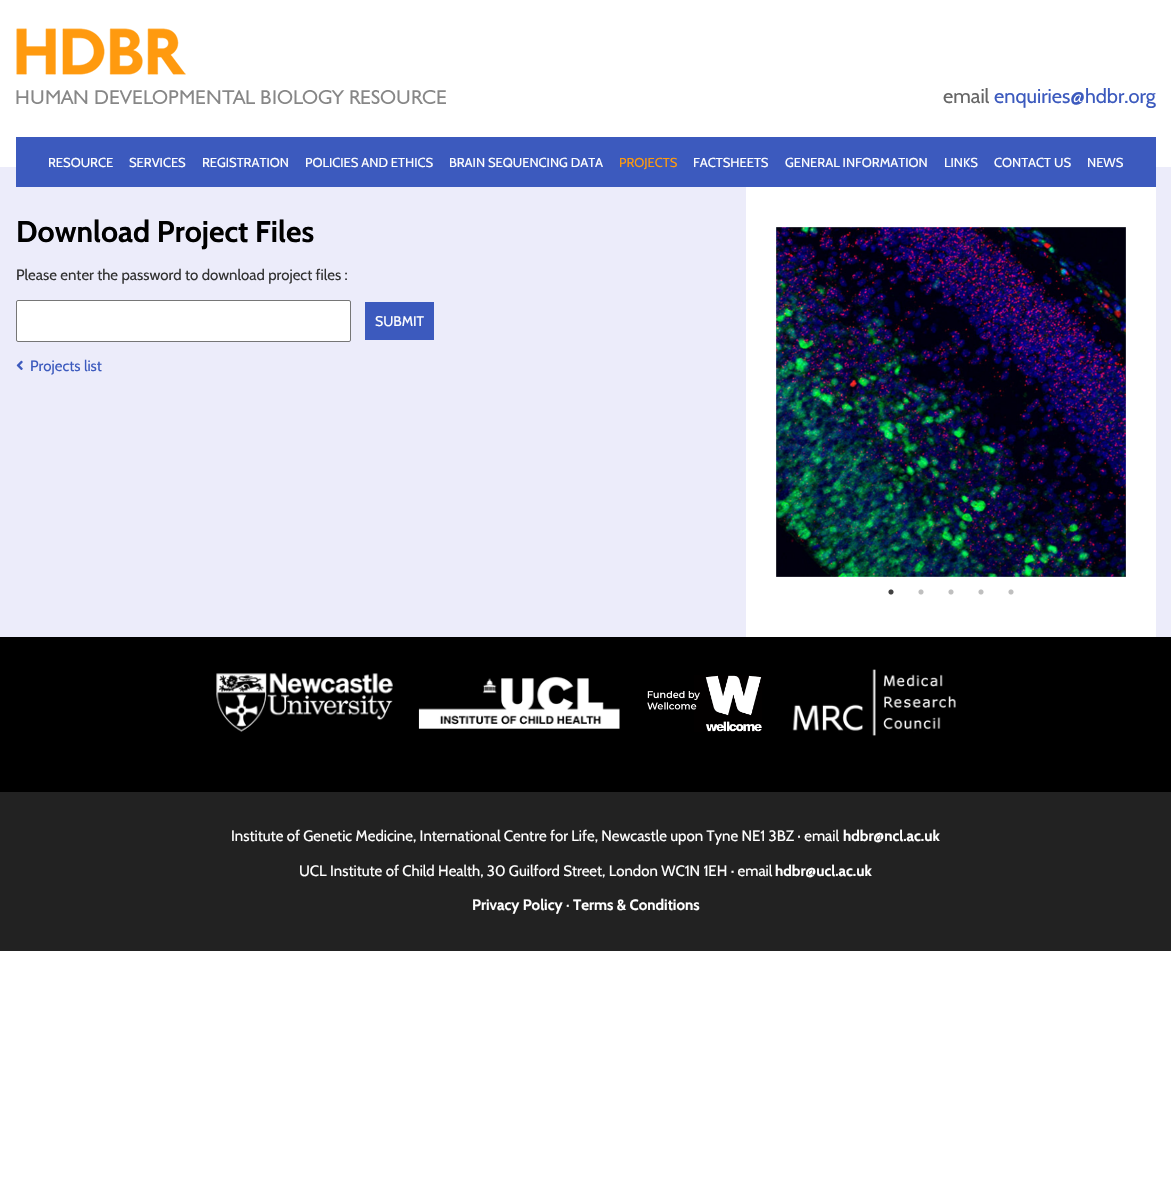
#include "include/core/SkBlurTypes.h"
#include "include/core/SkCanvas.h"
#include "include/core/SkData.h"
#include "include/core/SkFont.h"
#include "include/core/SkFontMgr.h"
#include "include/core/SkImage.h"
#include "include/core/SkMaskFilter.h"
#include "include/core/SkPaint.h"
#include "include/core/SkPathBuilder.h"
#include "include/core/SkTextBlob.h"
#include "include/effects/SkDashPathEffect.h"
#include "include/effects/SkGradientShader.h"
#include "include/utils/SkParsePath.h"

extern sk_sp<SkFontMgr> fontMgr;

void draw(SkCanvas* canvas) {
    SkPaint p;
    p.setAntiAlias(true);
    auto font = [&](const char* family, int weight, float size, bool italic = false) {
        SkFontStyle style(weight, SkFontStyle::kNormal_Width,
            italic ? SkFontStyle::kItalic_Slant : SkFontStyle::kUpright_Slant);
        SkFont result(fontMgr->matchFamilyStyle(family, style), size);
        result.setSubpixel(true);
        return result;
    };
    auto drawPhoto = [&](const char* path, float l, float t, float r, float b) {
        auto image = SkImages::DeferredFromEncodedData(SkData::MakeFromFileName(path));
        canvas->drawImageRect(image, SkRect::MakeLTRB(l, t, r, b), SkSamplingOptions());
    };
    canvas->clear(0xFFFFFFFF);
    drawPhoto("media/1.png", 16, 28, 446, 104);
    auto font1 = font("Cabin", 400, 20);
    p.setColor(0xFF666666);
    canvas->drawString("email", 943, 103, font1, p);
    p.setColor(0xFF3C5ABE);
    canvas->drawString("enquiries@hdbr.org", 994, 103, font1, p);
    p.setColor(0xFFECECFA);
    canvas->drawRect(SkRect::MakeLTRB(0, 167, 1171, 637), p);
    p.setColor(0xFF3C5ABE);
    canvas->drawRect(SkRect::MakeLTRB(16, 137, 1156, 187), p);
    auto font2 = font("Cabin", 400, 13);
    p.setColor(0xFFFFFFFF);
    {
        const struct { const char* s; float x, y; } items[] = {
            {"RESOURCE", 48, 167},
            {"SERVICES", 129, 167},
            {"REGISTRATION", 202, 167},
            {"POLICIES AND ETHICS", 305, 167},
            {"BRAIN SEQUENCING DATA", 449, 167},
        };
        for (auto [s, x, y] : items) {
            canvas->drawString(s, x, y, font2, p);
        }
    }
    p.setColor(0xFFFF9A0E);
    canvas->drawString("PROJECTS", 619, 167, font2, p);
    p.setColor(0xFFFFFFFF);
    {
        const struct { const char* s; float x, y; } items[] = {
            {"FACTSHEETS", 693, 167},
            {"GENERAL INFORMATION", 785, 167},
            {"LINKS", 944, 167},
            {"CONTACT US", 994, 167},
            {"NEWS", 1087, 167},
        };
        for (auto [s, x, y] : items) {
            canvas->drawString(s, x, y, font2, p);
        }
    }
    auto font3 = font("Cabin", 700, 30);
    p.setColor(0xFF000000);
    canvas->drawString("Download Project Files", 16, 242, font3, p);
    auto font4 = font("Cabin", 400, 15);
    p.setColor(0xFF333333);
    canvas->drawString("Please enter the password to download project files :", 16, 280, font4, p);
    p.setColor(0xFFFFFFFF);
    canvas->drawRoundRect(SkRect::MakeLTRB(16.5f, 300.5f, 350.5f, 341.5f), 1.5f, 1.5f, p);
    p.setStyle(SkPaint::kStroke_Style);
    p.setStrokeWidth(1);
    p.setColor(0xFF767676);
    canvas->drawRoundRect(SkRect::MakeLTRB(16.5f, 300.5f, 350.5f, 341.5f), 1.5f, 1.5f, p);
    p.setStyle(SkPaint::kFill_Style);
    p.setColor(0xFF3C5ABE);
    canvas->drawRect(SkRect::MakeLTRB(365, 302, 434, 340), p);
    auto font5 = font("Cabin", 400, 14);
    p.setColor(0xFFFFFFFF);
    canvas->drawString("SUBMIT", 375, 326, font5, p);
    drawPhoto("media/2.png", 16, 360, 23, 370);
    p.setColor(0xFF3C5ABE);
    canvas->drawString("Projects list", 30, 371, font4, p);
    p.setColor(0xFFFFFFFF);
    canvas->drawRect(SkRect::MakeLTRB(746, 187, 1156, 637), p);
    drawPhoto("media/3.png", 776, 227, 1126, 577);
    drawPhoto("media/4.png", 888, 589, 894, 595);
    drawPhoto("media/5.png", 918, 589, 924, 595);
    drawPhoto("media/5.png", 948, 589, 954, 595);
    drawPhoto("media/5.png", 978, 589, 984, 595);
    drawPhoto("media/5.png", 1008, 589, 1014, 595);
    p.setColor(0xFF000000);
    canvas->drawRect(SkRect::MakeLTRB(0, 637, 1171, 792), p);
    drawPhoto("media/6.png", 216, 673, 393, 732);
    drawPhoto("media/7.png", 418, 676, 620, 729);
    drawPhoto("media/8.png", 647, 675, 762, 732);
    drawPhoto("media/9.png", 792, 669, 956, 736);
    p.setColor(0xFF222222);
    canvas->drawRect(SkRect::MakeLTRB(0, 792, 1171, 951), p);
    p.setColor(0xFFFFFFFF);
    canvas->drawString("Institute of Genetic Medicine, International Centre for Life, Newcastle upon Tyne NE1 3BZ · email", 231, 841, font4, p);
    auto font6 = font("Cabin", 700, 15);
    canvas->drawString("hdbr@ncl.ac.uk", 843, 841, font6, p);
    canvas->drawString("UCL Institute of Child Health, 30 Guilford Street, London WC1N 1EH · email", 299, 876, font4, p);
    canvas->drawString("hdbr@ucl.ac.uk", 775, 876, font6, p);
    canvas->drawString("Privacy Policy", 472, 910, font6, p);
    canvas->drawString("·", 566, 910, font4, p);
    canvas->drawString("Terms & Conditions", 573, 910, font6, p);
}
